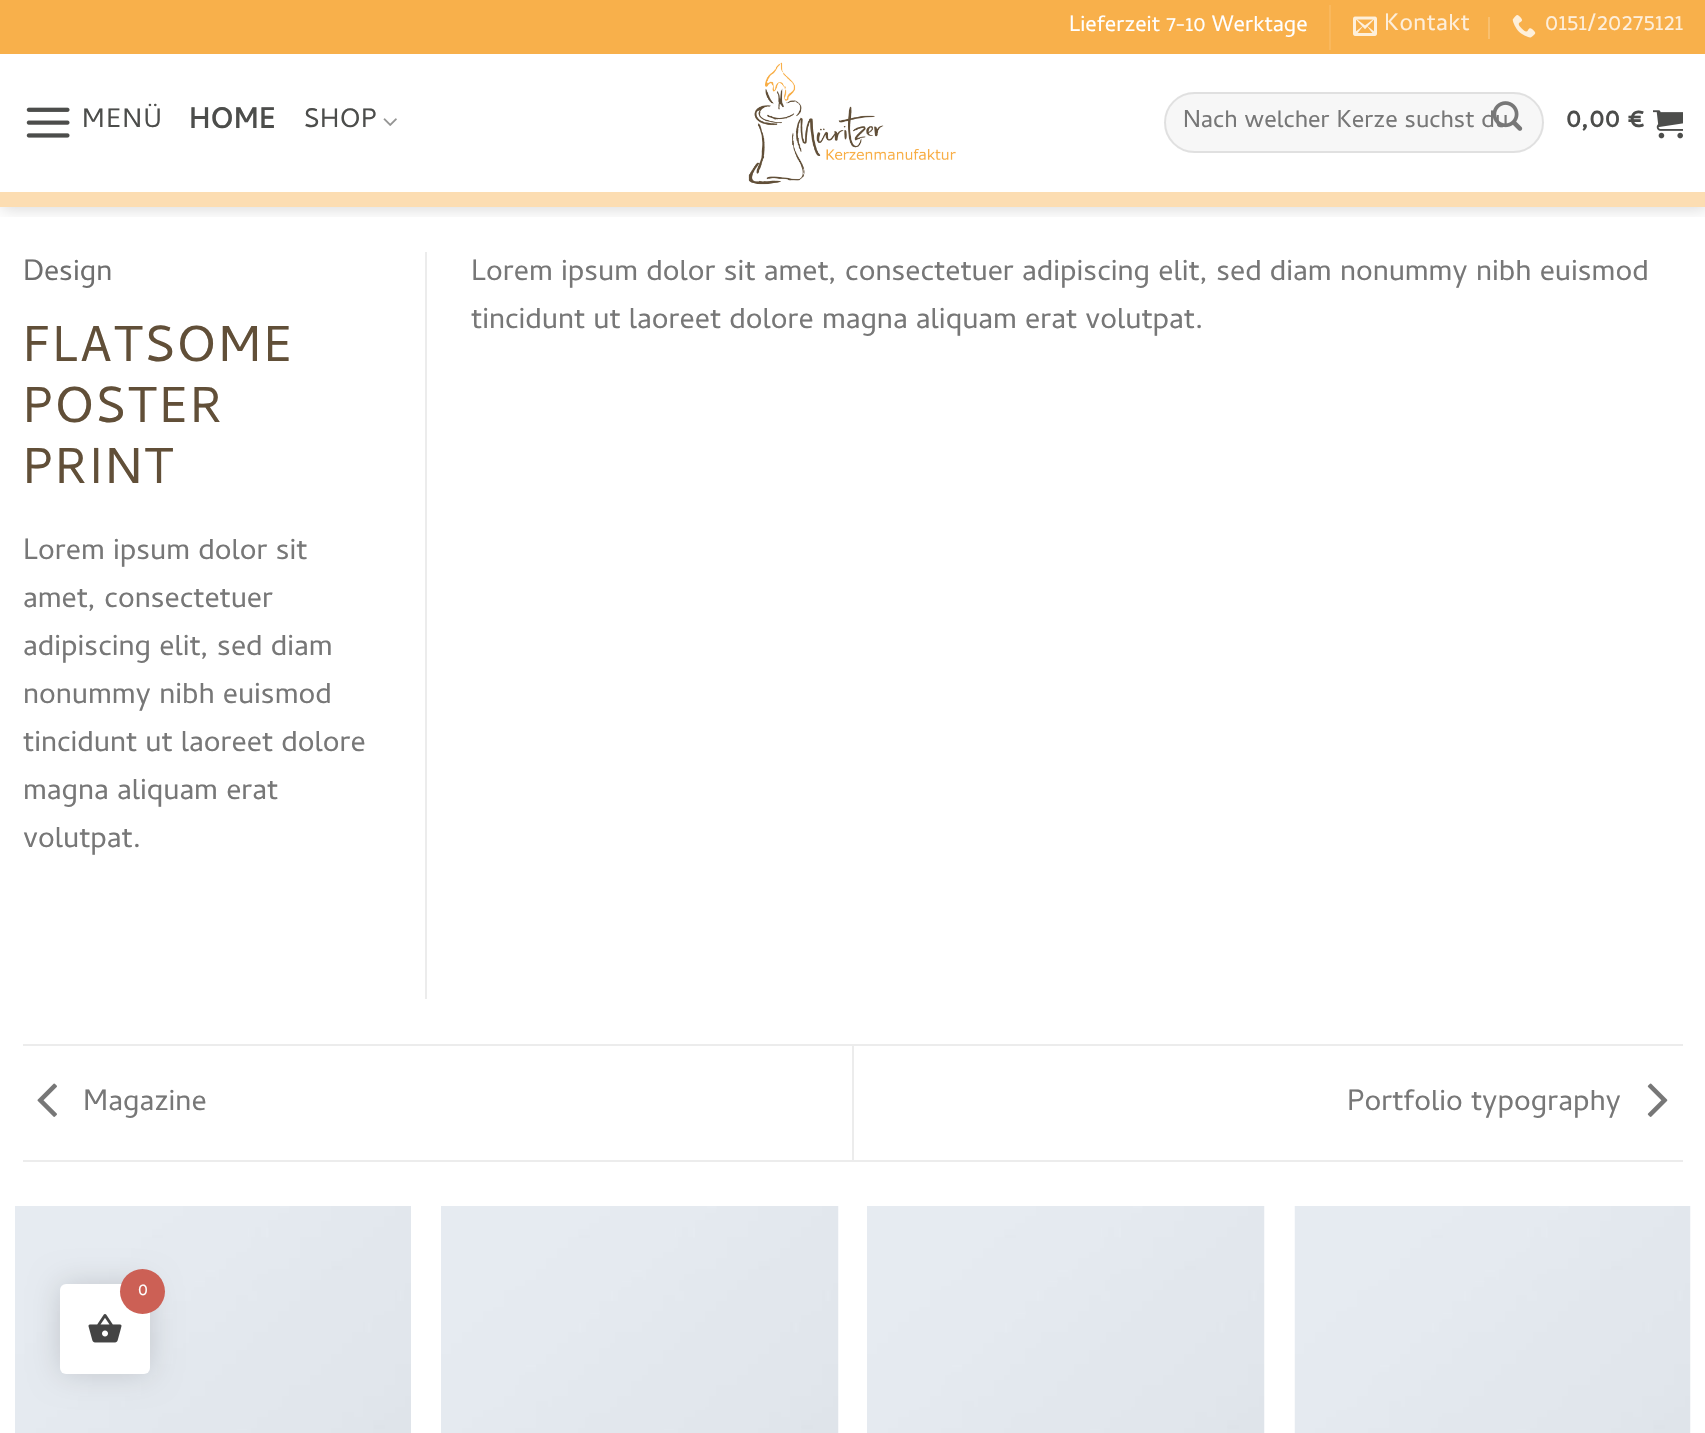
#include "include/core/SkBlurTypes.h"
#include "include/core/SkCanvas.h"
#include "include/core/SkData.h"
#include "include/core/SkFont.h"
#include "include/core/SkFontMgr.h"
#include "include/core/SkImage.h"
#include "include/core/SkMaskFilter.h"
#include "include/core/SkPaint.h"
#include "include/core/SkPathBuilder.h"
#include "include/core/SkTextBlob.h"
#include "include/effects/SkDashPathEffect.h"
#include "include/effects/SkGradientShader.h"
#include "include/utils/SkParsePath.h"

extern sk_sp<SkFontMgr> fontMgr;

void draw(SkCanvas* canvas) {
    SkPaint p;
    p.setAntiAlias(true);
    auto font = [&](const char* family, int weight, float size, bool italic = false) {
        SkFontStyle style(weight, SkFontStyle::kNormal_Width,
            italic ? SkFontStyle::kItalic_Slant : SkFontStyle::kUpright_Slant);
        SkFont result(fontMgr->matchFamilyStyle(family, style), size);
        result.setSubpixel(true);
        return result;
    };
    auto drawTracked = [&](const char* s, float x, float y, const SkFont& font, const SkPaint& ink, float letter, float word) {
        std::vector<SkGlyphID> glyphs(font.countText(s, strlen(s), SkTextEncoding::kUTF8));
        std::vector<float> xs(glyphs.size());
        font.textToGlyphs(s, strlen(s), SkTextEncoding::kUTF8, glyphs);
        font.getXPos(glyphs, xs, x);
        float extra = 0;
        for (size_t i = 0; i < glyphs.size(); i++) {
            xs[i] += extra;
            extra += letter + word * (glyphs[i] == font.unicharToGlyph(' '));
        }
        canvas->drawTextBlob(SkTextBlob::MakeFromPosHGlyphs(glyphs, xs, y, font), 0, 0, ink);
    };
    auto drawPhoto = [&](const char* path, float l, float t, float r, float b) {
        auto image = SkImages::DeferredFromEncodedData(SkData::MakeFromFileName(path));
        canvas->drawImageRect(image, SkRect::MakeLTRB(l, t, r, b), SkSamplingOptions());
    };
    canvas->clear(0xFFFFFFFF);
    canvas->save();
    canvas->clipRect(SkRect::MakeLTRB(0, 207, 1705, 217));
    p.setColor(0x26000000);
    p.setMaskFilter(SkMaskFilter::MakeBlur(kNormal_SkBlurStyle, 7.5f));
    canvas->drawRect(SkRect::MakeLTRB(2, 2, 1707, 209), p);
    p.setMaskFilter(nullptr);
    canvas->restore();
    p.setColor(0xFFF8B04B);
    canvas->drawRect(SkRect::MakeLTRB(0, 0, 1705, 54), p);
    auto font1 = font("Cambay", 400, 22.5f);
    p.setColor(0xFFFFFFFF);
    canvas->drawString("Lieferzeit 7-10 Werktage", 1069, 31, font1, p);
    p.setColor(0xFFF9B85D);
    canvas->drawRect(SkRect::MakeLTRB(1329, 5, 1331, 50), p);
    drawPhoto("media/1.png", 1353, 16, 1377, 36);
    auto font2 = font("Cambay", 400, 24);
    p.setColor(0xFFFEEFDB);
    drawTracked("Kontakt", 1384, 30, font2, p, 0.5f, 0);
    p.setColor(0xFFF9C06F);
    canvas->drawRect(SkRect::MakeLTRB(1488, 17, 1490, 39), p);
    drawPhoto("media/2.png", 1512, 15, 1536, 38);
    p.setColor(0xFFFEEFDB);
    drawTracked("0151/20275121", 1545, 30, font2, p, 0.5f, 0);
    drawPhoto("media/3.png", 26, 107, 70, 138);
    auto font3 = font("Cambay", 400, 27);
    p.setColor(0xFF4C4D4B);
    drawTracked("MENÜ", 82, 127, font3, p, 1.5f, 0);
    auto font4 = font("Cambay", 700, 29);
    drawTracked("HOME", 189, 128, font4, p, 1, 0);
    drawTracked("SHOP", 304, 127, font3, p, 0.5f, 0);
    drawPhoto("media/4.png", 383, 118, 397, 126);
    drawPhoto("media/5.png", 748, 62, 956, 185);
    p.setColor(0xFFF7F7F7);
    canvas->drawRoundRect(SkRect::MakeLTRB(1164, 92, 1544, 153), 30.5f, 30.5f, p);
    p.setStyle(SkPaint::kStroke_Style);
    p.setStrokeWidth(2);
    p.setColor(0x17000000);
    canvas->drawRoundRect(SkRect::MakeLTRB(1165, 93, 1543, 152), 29.5f, 29.5f, p);
    auto font5 = font("Cambay", 400, 24.75f);
    p.setStyle(SkPaint::kFill_Style);
    p.setColor(0xFF777777);
    canvas->drawString("Nach welcher Kerze suchst du", 1183, 127, font5, p);
    drawPhoto("media/6.png", 1493, 101, 1523, 131);
    auto font6 = font("Cambay", 700, 27);
    p.setColor(0xFF4C4D4B);
    drawTracked("0,00 €", 1566, 127, font6, p, 0.5f, 0);
    drawPhoto("media/7.png", 1653, 110, 1683, 139);
    p.setColor(0xFFFCDDB2);
    canvas->drawRect(SkRect::MakeLTRB(0, 192, 1705, 207), p);
    p.setColor(0xFFECECEC);
    canvas->drawRect(SkRect::MakeLTRB(425, 252, 427, 999), p);
    auto font7 = font("Cambay", 400, 30);
    p.setColor(0xFF6E6E6E);
    canvas->drawString("Design", 23, 280, font7, p);
    auto font8 = font("Cambay", 400, 51);
    p.setColor(0xFF614F38);
    {
        const struct { const char* s; float x, y; } items[] = {
            {"FLATSOME", 23, 361},
            {"POSTER", 23, 422},
            {"PRINT", 23, 483},
        };
        for (auto [s, x, y] : items) {
            drawTracked(s, x, y, font8, p, 2.5f, 0);
        }
    }
    p.setColor(0xFF777777);
    {
        const struct { const char* s; float x, y; } items[] = {
            {"Lorem ipsum dolor sit", 23, 559},
            {"amet, consectetuer", 23, 607},
            {"adipiscing elit, sed diam", 23, 655},
            {"nonummy nibh euismod", 23, 703},
            {"tincidunt ut laoreet dolore", 23, 751},
            {"magna aliquam erat", 23, 799},
            {"volutpat.", 23, 847},
            {"Lorem ipsum dolor sit amet, consectetuer adipiscing elit, sed diam nonummy nibh euismod", 471, 280},
            {"tincidunt ut laoreet dolore magna aliquam erat volutpat.", 471, 328},
        };
        for (auto [s, x, y] : items) {
            canvas->drawString(s, x, y, font7, p);
        }
    }
    p.setColor(0xFFECECEC);
    canvas->drawRect(SkRect::MakeLTRB(23, 1044, 1683, 1046), p);
    canvas->drawRect(SkRect::MakeLTRB(23, 1160, 1683, 1162), p);
    drawPhoto("media/8.png", 37, 1083, 57, 1117);
    p.setColor(0xFF777777);
    canvas->drawString("Magazine", 83, 1110, font7, p);
    p.setColor(0xFFECECEC);
    canvas->drawRect(SkRect::MakeLTRB(852, 1046, 854, 1160), p);
    p.setColor(0xFF777777);
    canvas->drawString("Portfolio typography", 1347, 1110, font7, p);
    drawPhoto("media/9.png", 1647, 1083, 1668, 1117);
    drawPhoto("media/10.png", 15, 1206, 411, 1433);
    drawPhoto("media/11.png", 441, 1206, 839, 1433);
    drawPhoto("media/11.png", 867, 1206, 1265, 1433);
    drawPhoto("media/12.png", 1294, 1206, 1691, 1433);
    p.setColor(0x26000000);
    p.setMaskFilter(SkMaskFilter::MakeBlur(kNormal_SkBlurStyle, 15));
    canvas->drawRoundRect(SkRect::MakeLTRB(60, 1284, 150, 1374), 6, 6, p);
    p.setMaskFilter(nullptr);
    p.setColor(0xFFFFFFFF);
    canvas->drawRoundRect(SkRect::MakeLTRB(60, 1284, 150, 1374), 6, 6, p);
    p.setColor(0xFFCC6055);
    canvas->drawCircle(142.5f, 1291.5f, 22.5f, p);
    auto font9 = font("Cambay", 400, 18);
    p.setColor(0xFFFFFFFF);
    canvas->drawString("0", 138, 1295, font9, p);
    drawPhoto("media/13.png", 88, 1314, 122, 1343);
}
